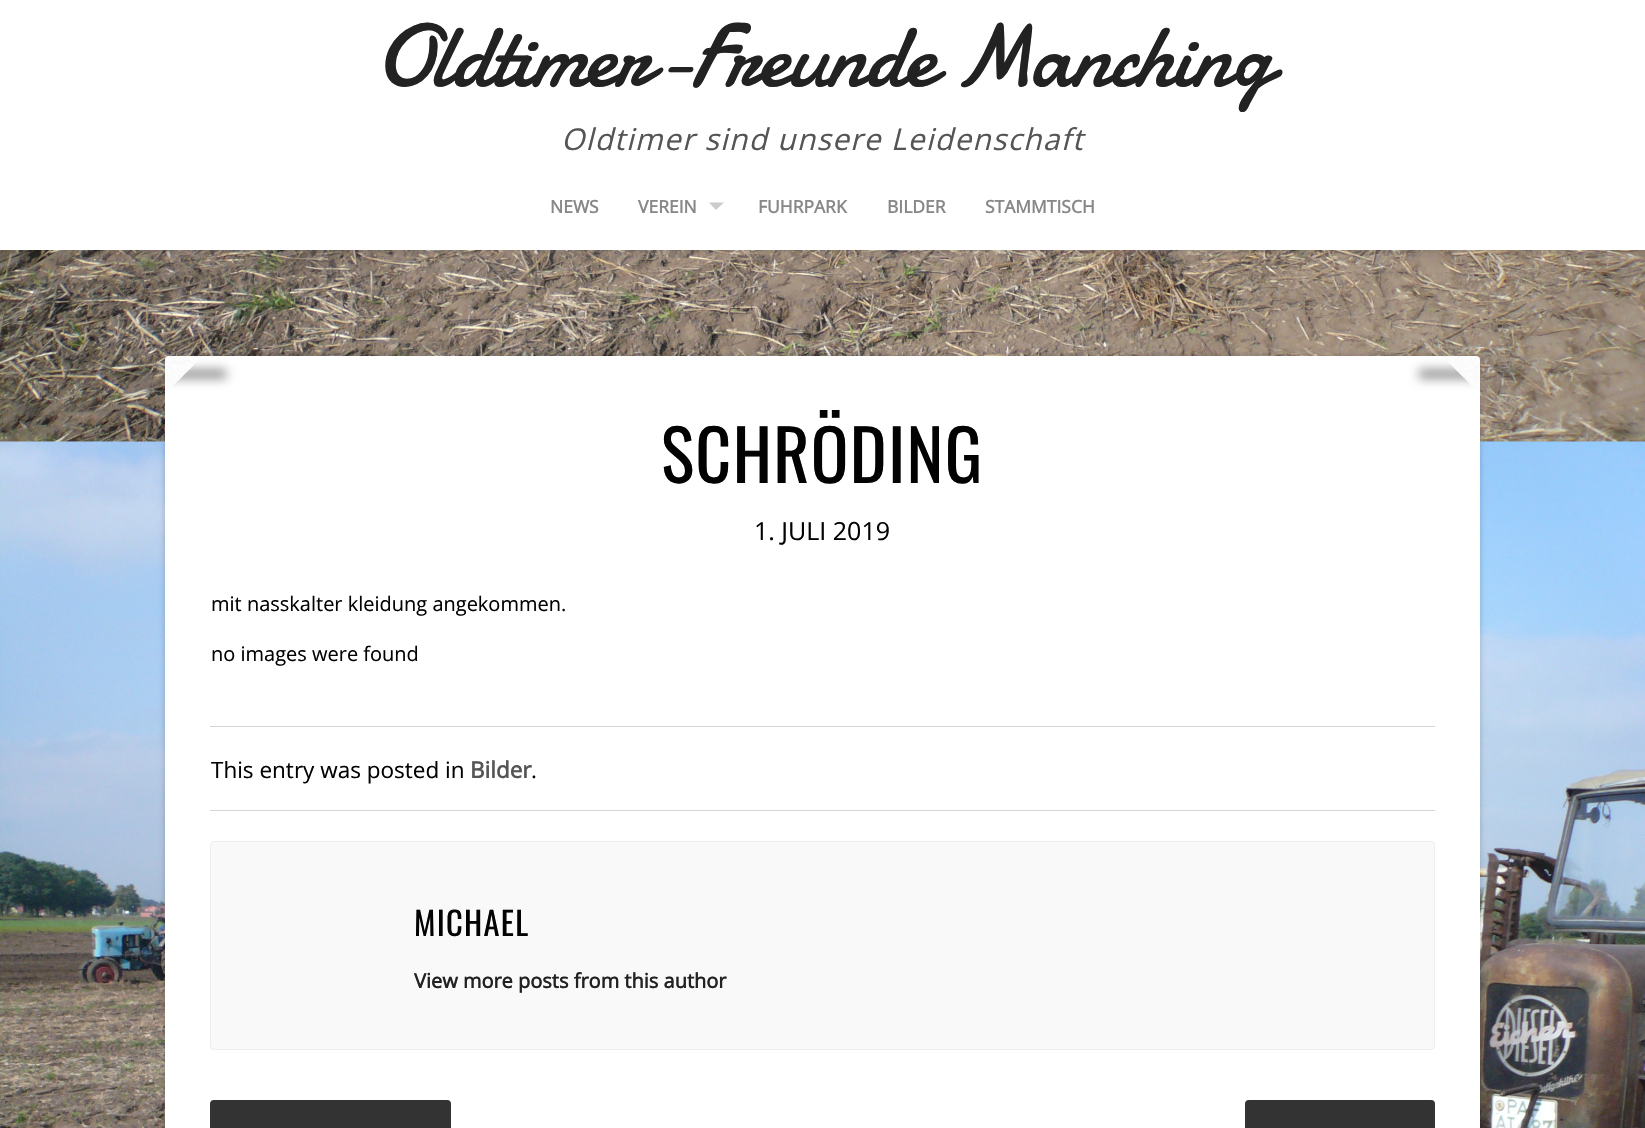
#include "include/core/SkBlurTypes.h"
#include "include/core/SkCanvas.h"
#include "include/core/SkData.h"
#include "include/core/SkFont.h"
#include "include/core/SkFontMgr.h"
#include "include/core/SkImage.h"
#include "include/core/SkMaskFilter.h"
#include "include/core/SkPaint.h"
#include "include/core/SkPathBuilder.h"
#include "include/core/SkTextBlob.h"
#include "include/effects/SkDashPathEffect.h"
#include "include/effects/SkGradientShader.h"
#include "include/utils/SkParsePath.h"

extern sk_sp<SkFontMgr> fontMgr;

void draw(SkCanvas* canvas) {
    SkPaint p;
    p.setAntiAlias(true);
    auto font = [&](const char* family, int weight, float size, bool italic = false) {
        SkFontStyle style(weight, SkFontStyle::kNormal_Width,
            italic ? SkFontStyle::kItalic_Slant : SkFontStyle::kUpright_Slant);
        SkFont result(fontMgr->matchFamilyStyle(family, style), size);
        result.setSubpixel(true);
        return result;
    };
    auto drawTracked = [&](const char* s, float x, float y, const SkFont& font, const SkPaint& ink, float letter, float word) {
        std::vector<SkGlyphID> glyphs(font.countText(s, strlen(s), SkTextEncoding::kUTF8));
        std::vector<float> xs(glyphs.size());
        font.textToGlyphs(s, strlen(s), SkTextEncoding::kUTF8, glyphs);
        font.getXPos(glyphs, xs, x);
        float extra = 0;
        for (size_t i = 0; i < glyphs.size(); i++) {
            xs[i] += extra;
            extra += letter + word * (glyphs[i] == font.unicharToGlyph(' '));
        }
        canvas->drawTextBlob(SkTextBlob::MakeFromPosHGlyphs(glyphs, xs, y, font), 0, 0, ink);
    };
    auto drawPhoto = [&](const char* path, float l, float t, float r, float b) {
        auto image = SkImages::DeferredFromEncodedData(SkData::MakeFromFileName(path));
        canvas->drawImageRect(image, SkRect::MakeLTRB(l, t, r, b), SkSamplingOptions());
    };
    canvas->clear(0xFFFFFFFF);
    drawPhoto("media/1.png", 0, 250, 1645, 1128);
    p.setColor(0x26000000);
    p.setMaskFilter(SkMaskFilter::MakeBlur(kNormal_SkBlurStyle, 3));
    canvas->drawRect(SkRect::MakeLTRB(0, -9, 1645, 250), p);
    p.setMaskFilter(nullptr);
    p.setColor(0xFFFFFFFF);
    canvas->drawRect(SkRect::MakeLTRB(0, 0, 1645, 250), p);
    auto font1 = font("Damion", 400, 90);
    p.setColor(0xFF222222);
    drawTracked("Oldtimer-Freunde Manching", 375, 86, font1, p, -2.5f, 0);
    auto font2 = font("Open Sans", 400, 30, true);
    p.setColor(0xFF555555);
    drawTracked("Oldtimer sind unsere Leidenschaft", 561, 150, font2, p, 1.25f, 0);
    auto font3 = font("Open Sans", 700, 17.5f);
    p.setColor(0xFF888888);
    canvas->drawString("NEWS", 550, 213, font3, p);
    canvas->drawString("VEREIN", 638, 213, font3, p);
    p.setColor(0xFFCCCCCC);
    canvas->drawPath(SkPathBuilder().moveTo(709, 202.5f).lineTo(724, 202.5f).lineTo(716, 210).close().detach(), p);
    p.setColor(0xFF888888);
    {
        const struct { const char* s; float x, y; } items[] = {
            {"FUHRPARK", 758, 213},
            {"BILDER", 887, 213},
            {"STAMMTISCH", 985, 213},
        };
        for (auto [s, x, y] : items) {
            canvas->drawString(s, x, y, font3, p);
        }
    }
    p.setColor(0x33000000);
    p.setMaskFilter(SkMaskFilter::MakeBlur(kNormal_SkBlurStyle, 3));
    canvas->drawRoundRect(SkRect::MakeLTRB(165, 356, 1480, 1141), 4, 4, p);
    p.setMaskFilter(nullptr);
    p.setColor(0xFFFFFFFF);
    canvas->drawRoundRect(SkRect::MakeLTRB(165, 356, 1480, 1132), 4, 4, p);
    canvas->save();
    canvas->clipPath(SkPathBuilder(SkPathFillType::kEvenOdd).moveTo(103, 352).lineTo(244, 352).lineTo(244, 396).lineTo(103, 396).close().moveTo(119.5f, 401).lineTo(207.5f, 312.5f).lineTo(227, 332).lineTo(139, 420).close().detach(), true);
    p.setColor(0x80000000);
    p.setMaskFilter(SkMaskFilter::MakeBlur(kNormal_SkBlurStyle, 5.5f));
    canvas->drawRect(SkRect::MakeLTRB(121, 370, 226, 378), p);
    p.setMaskFilter(nullptr);
    canvas->restore();
    drawPhoto("media/2.png", 121, 318, 222, 416);
    canvas->save();
    canvas->clipPath(SkPathBuilder(SkPathFillType::kEvenOdd).moveTo(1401, 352).lineTo(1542, 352).lineTo(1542, 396).lineTo(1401, 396).close().moveTo(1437.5f, 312.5f).lineTo(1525.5f, 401).lineTo(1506, 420).lineTo(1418, 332).close().detach(), true);
    p.setMaskFilter(SkMaskFilter::MakeBlur(kNormal_SkBlurStyle, 5.5f));
    canvas->drawRect(SkRect::MakeLTRB(1419, 370, 1524, 378), p);
    p.setMaskFilter(nullptr);
    canvas->restore();
    drawPhoto("media/3.png", 1421, 314, 1519, 417);
    auto font4 = font("Oswald", 400, 70);
    p.setColor(0xFF020202);
    drawTracked("SCHRÖDING", 661, 483, font4, p, 1.25f, 0);
    auto font5 = font("Open Sans", 400, 25);
    canvas->drawString("1. JULI 2019", 754, 540, font5, p);
    auto font6 = font("Open Sans", 400, 20);
    canvas->drawString("mit nasskalter kleidung angekommen.", 211, 611, font6, p);
    canvas->drawString("no images were found", 211, 661, font6, p);
    p.setColor(0xFFD5D5D5);
    canvas->drawRect(SkRect::MakeLTRB(210, 726, 1435, 727), p);
    auto font7 = font("Open Sans", 400, 22.5f);
    p.setColor(0xFF020202);
    canvas->drawString("This entry was posted in", 211, 778, font7, p);
    auto font8 = font("Open Sans", 700, 22.5f);
    p.setColor(0xFF555555);
    canvas->drawString("Bilder", 470, 778, font8, p);
    p.setColor(0xFF020202);
    canvas->drawString(".", 531, 778, font7, p);
    p.setColor(0xFFD5D5D5);
    canvas->drawRect(SkRect::MakeLTRB(210, 810, 1435, 811), p);
    p.setColor(0xFFF9F9F9);
    canvas->drawRoundRect(SkRect::MakeLTRB(210.5f, 841.5f, 1434.5f, 1049.5f), 3.5f, 3.5f, p);
    p.setStyle(SkPaint::kStroke_Style);
    p.setStrokeWidth(1);
    p.setColor(0xFFEEEEEE);
    canvas->drawRoundRect(SkRect::MakeLTRB(210.5f, 841.5f, 1434.5f, 1049.5f), 3.5f, 3.5f, p);
    auto font9 = font("Oswald", 400, 32.5f);
    p.setStyle(SkPaint::kFill_Style);
    p.setColor(0xFF020202);
    drawTracked("MICHAEL", 414, 936, font9, p, 1.25f, 0);
    auto font10 = font("Open Sans", 700, 20);
    p.setColor(0xFF222222);
    canvas->drawString("View more posts from this author", 414, 988, font10, p);
    p.setColor(0xFF333333);
    canvas->drawRoundRect(SkRect::MakeLTRB(210, 1100, 451, 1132), 4, 4, p);
    canvas->drawRoundRect(SkRect::MakeLTRB(1245, 1100, 1435, 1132), 4, 4, p);
}
